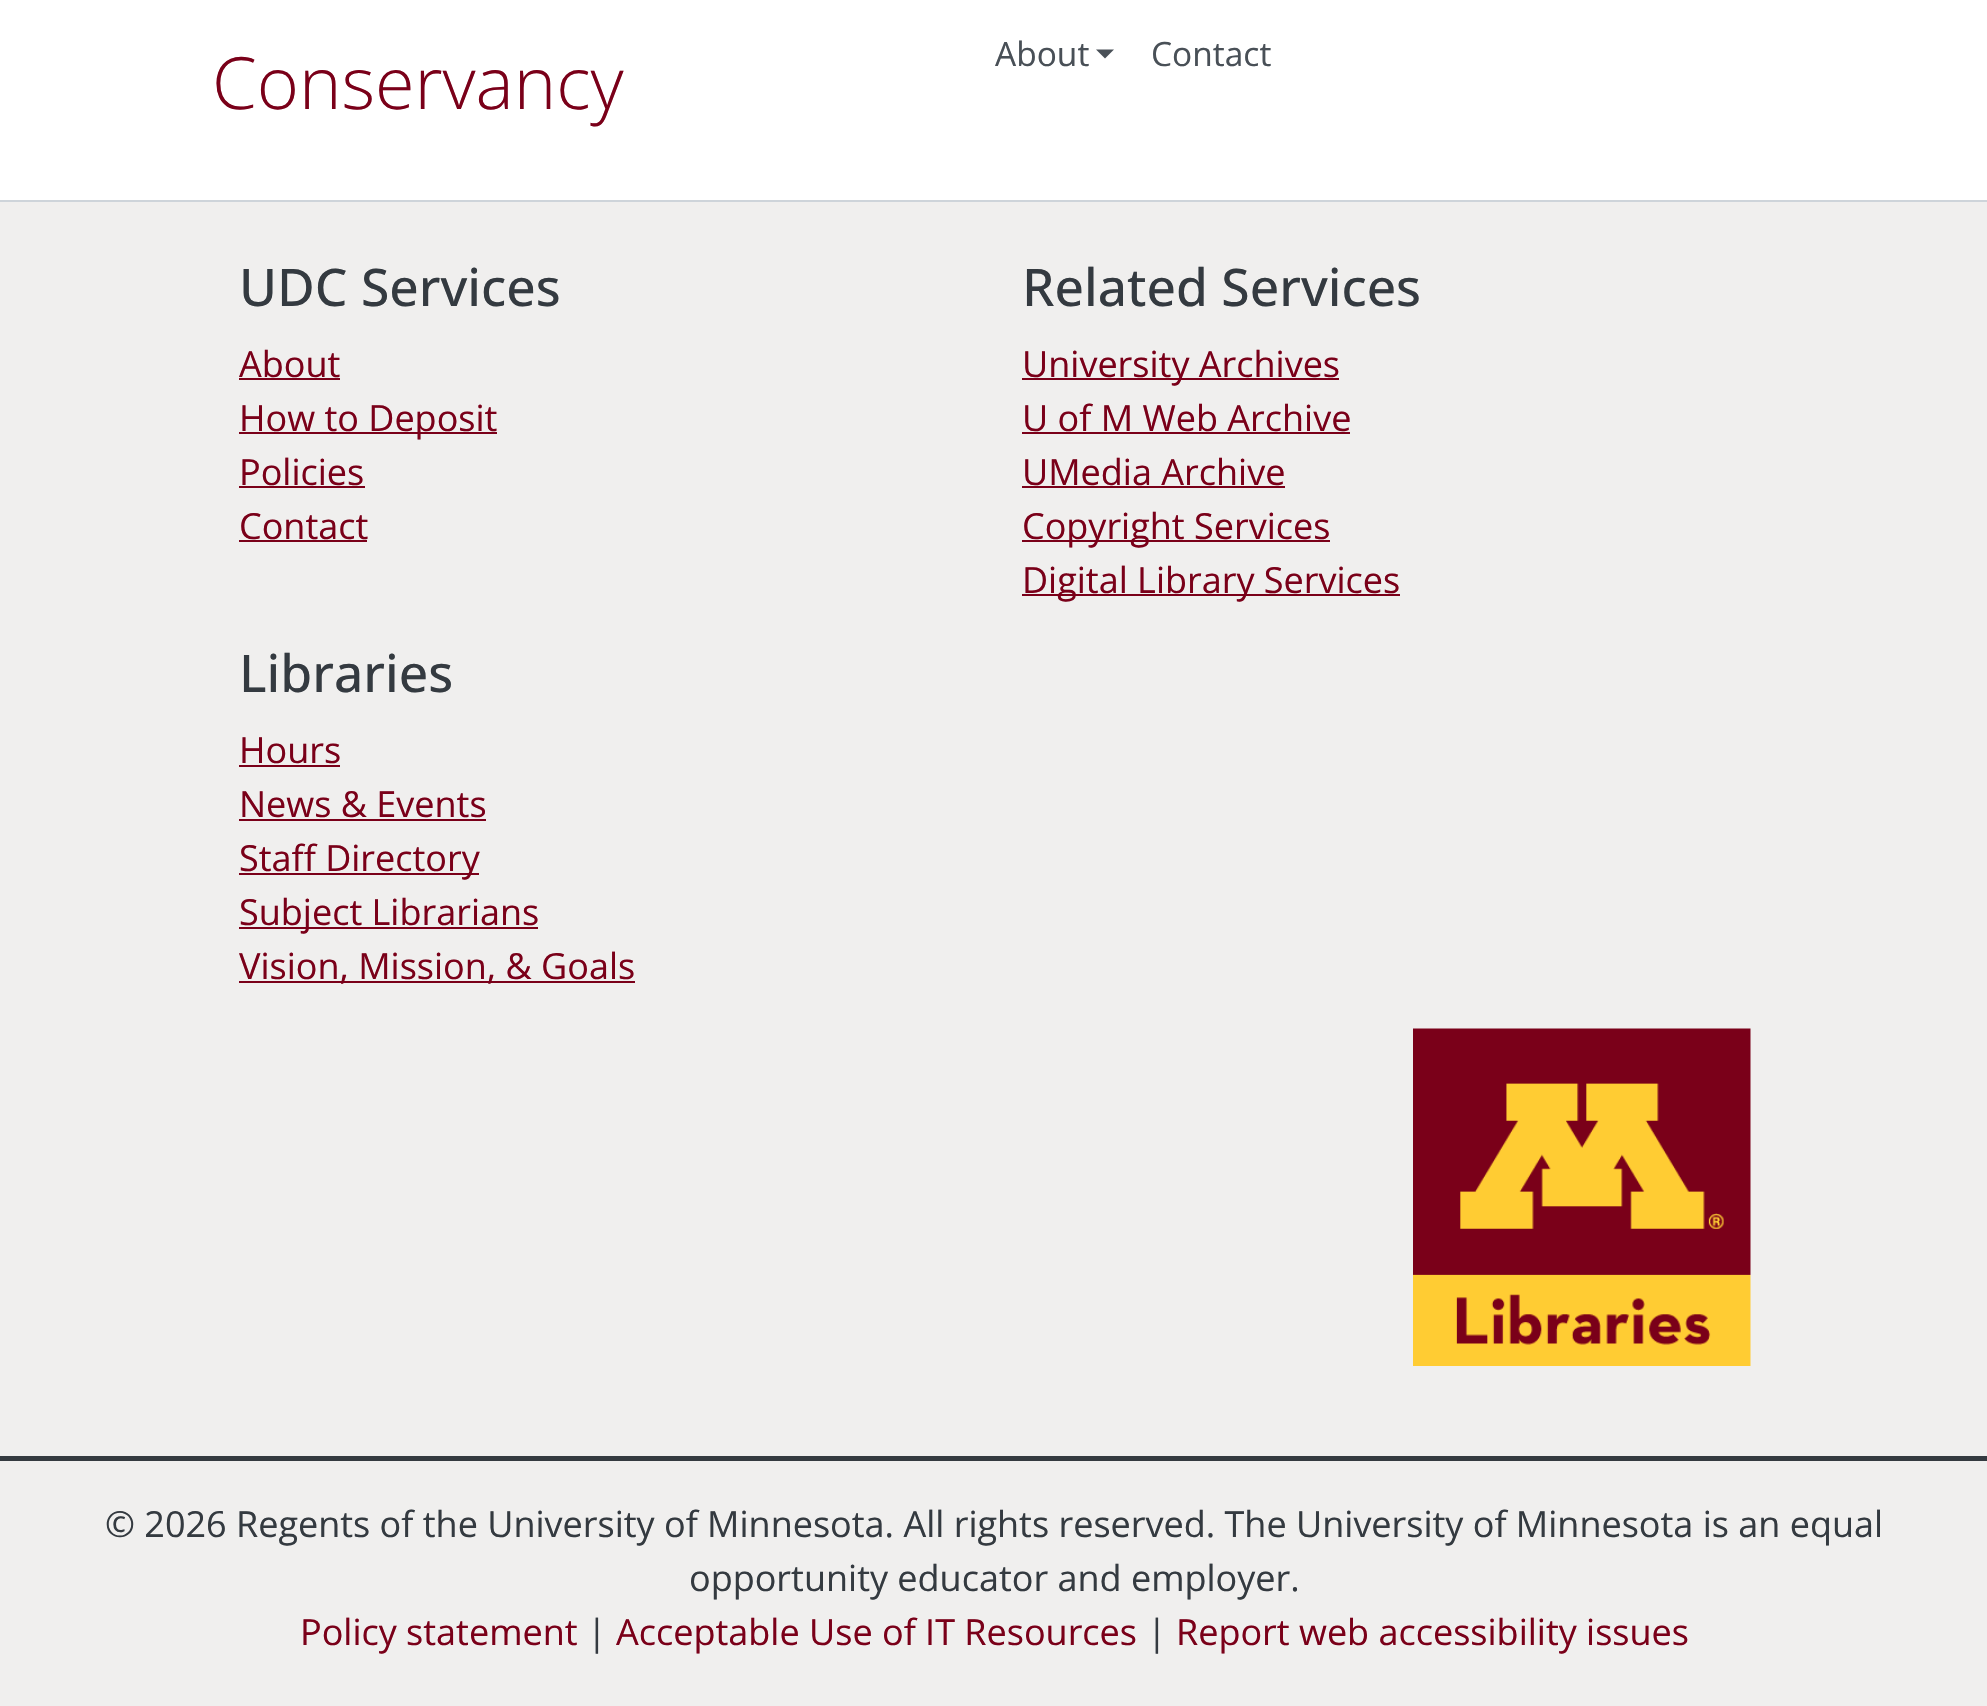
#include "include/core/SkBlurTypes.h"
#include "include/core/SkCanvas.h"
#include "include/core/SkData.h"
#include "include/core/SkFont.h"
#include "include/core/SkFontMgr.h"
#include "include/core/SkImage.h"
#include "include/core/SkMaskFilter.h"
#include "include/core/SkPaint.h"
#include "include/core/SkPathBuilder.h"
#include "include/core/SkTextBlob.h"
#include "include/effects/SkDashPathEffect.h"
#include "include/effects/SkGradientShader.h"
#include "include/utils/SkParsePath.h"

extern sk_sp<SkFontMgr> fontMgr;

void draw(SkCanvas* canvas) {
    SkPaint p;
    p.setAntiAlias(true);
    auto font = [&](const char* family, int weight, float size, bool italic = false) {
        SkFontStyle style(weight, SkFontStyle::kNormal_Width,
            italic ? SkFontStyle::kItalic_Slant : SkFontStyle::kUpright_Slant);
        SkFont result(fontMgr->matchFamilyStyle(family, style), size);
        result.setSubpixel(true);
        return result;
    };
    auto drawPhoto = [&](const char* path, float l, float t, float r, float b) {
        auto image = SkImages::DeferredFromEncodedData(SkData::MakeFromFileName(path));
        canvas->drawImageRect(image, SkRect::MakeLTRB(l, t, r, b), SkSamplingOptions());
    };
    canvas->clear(0xFFFFFFFF);
    auto font1 = font("Open Sans", 300, 72);
    p.setColor(0xFF7A0019);
    canvas->drawString("Conservancy", 212, 109, font1, p);
    auto font2 = font("Open Sans", 400, 33.5f);
    p.setColor(0xFF495057);
    canvas->drawString("About", 995, 66, font2, p);
    canvas->drawPath(SkPathBuilder().moveTo(1096, 49.5f).lineTo(1114, 49.5f).lineTo(1105, 58.5f).close().detach(), p);
    canvas->drawString("Contact", 1151, 66, font2, p);
    p.setColor(0xFFF0EFEE);
    canvas->drawRect(SkRect::MakeLTRB(0, 202, 1987, 1706), p);
    p.setColor(0xFFCED4DA);
    canvas->drawRect(SkRect::MakeLTRB(0, 200, 1987, 202), p);
    auto font3 = font("Open Sans", 500, 51.75f);
    p.setColor(0xFF343A40);
    canvas->drawString("UDC Services", 239, 306, font3, p);
    auto font4 = font("Open Sans", 400, 36);
    p.setColor(0xFF7A0019);
    canvas->drawString("About", 239, 377, font4, p);
    canvas->drawRect(SkRect::MakeLTRB(239, 378, 340, 380), p);
    canvas->drawRect(SkRect::MakeLTRB(239, 432, 497, 434), p);
    canvas->drawString("How to Deposit", 239, 431, font4, p);
    canvas->drawString("Policies", 239, 485, font4, p);
    canvas->drawRect(SkRect::MakeLTRB(239, 486, 365, 488), p);
    canvas->drawString("Contact", 239, 539, font4, p);
    canvas->drawRect(SkRect::MakeLTRB(239, 540, 367, 542), p);
    p.setColor(0xFF343A40);
    canvas->drawString("Related Services", 1022, 306, font3, p);
    p.setColor(0xFF7A0019);
    canvas->drawRect(SkRect::MakeLTRB(1022, 378, 1339, 380), p);
    canvas->drawString("University Archives", 1022, 377, font4, p);
    canvas->drawString("U of M Web Archive", 1022, 431, font4, p);
    canvas->drawRect(SkRect::MakeLTRB(1022, 432, 1350, 434), p);
    canvas->drawString("UMedia Archive", 1022, 485, font4, p);
    canvas->drawRect(SkRect::MakeLTRB(1022, 486, 1285, 488), p);
    canvas->drawRect(SkRect::MakeLTRB(1022, 540, 1330, 542), p);
    canvas->drawString("Copyright Services", 1022, 539, font4, p);
    canvas->drawRect(SkRect::MakeLTRB(1022, 594, 1400, 596), p);
    canvas->drawString("Digital Library Services", 1022, 593, font4, p);
    p.setColor(0xFF343A40);
    canvas->drawString("Libraries", 239, 692, font3, p);
    p.setColor(0xFF7A0019);
    canvas->drawString("Hours", 239, 763, font4, p);
    canvas->drawRect(SkRect::MakeLTRB(239, 765, 340, 767), p);
    canvas->drawString("News & Events", 239, 817, font4, p);
    canvas->drawRect(SkRect::MakeLTRB(239, 819, 486, 821), p);
    canvas->drawRect(SkRect::MakeLTRB(239, 873, 479, 875), p);
    canvas->drawString("Staff Directory", 239, 871, font4, p);
    canvas->drawRect(SkRect::MakeLTRB(239, 927, 538, 929), p);
    canvas->drawString("Subject Librarians", 239, 925, font4, p);
    canvas->drawRect(SkRect::MakeLTRB(239, 981, 635, 983), p);
    canvas->drawString("Vision, Mission, & Goals", 239, 979, font4, p);
    drawPhoto("media/1.png", 1413, 1028, 1751, 1366);
    p.setColor(0xFF343A40);
    canvas->drawRect(SkRect::MakeLTRB(0, 1456, 1987, 1461), p);
    canvas->drawString("© 2026 Regents of the University of Minnesota. All rights reserved. The University of Minnesota is an equal", 105, 1537, font4, p);
    canvas->drawString("opportunity educator and employer.", 689, 1591, font4, p);
    p.setColor(0xFF7A0019);
    canvas->drawString("Policy statement", 300, 1645, font4, p);
    p.setColor(0xFF343A40);
    canvas->drawString("|", 587, 1645, font4, p);
    p.setColor(0xFF7A0019);
    canvas->drawString("Acceptable Use of IT Resources", 616, 1645, font4, p);
    p.setColor(0xFF343A40);
    canvas->drawString("|", 1147, 1645, font4, p);
    p.setColor(0xFF7A0019);
    canvas->drawString("Report web accessibility issues", 1176, 1645, font4, p);
}
